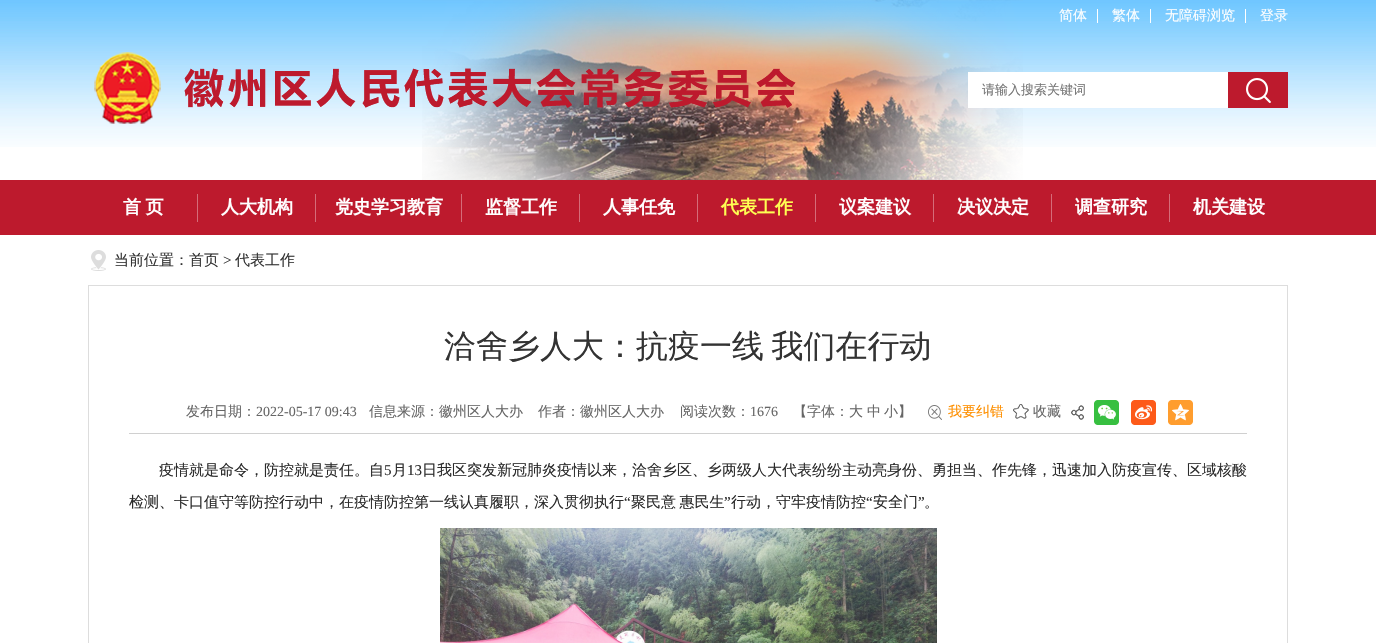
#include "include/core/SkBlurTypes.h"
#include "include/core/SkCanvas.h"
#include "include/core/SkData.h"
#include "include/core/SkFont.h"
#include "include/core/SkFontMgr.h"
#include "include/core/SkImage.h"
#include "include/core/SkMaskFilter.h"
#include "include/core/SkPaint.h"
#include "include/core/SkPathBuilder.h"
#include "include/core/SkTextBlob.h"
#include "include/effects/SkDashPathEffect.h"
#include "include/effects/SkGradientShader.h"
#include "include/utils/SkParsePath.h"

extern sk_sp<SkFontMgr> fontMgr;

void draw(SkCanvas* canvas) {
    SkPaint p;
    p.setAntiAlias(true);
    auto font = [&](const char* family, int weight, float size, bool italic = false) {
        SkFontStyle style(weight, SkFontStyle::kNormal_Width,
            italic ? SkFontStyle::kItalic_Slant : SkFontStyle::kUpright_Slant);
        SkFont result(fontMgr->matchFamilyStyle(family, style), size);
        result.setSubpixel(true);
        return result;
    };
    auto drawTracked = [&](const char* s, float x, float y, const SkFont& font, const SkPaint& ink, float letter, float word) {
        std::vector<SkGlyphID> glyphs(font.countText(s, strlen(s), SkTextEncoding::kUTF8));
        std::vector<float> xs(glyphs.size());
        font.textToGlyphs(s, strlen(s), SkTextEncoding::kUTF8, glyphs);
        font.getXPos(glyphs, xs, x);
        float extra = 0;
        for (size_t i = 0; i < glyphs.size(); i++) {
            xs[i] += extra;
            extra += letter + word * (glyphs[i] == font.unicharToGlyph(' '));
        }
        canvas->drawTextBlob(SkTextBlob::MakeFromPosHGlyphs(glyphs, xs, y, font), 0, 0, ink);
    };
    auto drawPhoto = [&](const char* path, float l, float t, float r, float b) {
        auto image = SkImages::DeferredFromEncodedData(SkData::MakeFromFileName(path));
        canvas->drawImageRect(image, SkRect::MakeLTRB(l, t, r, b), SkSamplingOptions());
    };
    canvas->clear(0xFFFFFFFF);
    drawPhoto("media/1.png", 0, 0, 1376, 147);
    drawPhoto("media/2.png", 422, 0, 1023, 180);
    auto font1 = font("WenQuanYi Zen Hei", 500, 14);
    p.setColor(0xFFFFFFFF);
    canvas->drawString("简体", 1059, 20, font1, p);
    canvas->drawRect(SkRect::MakeLTRB(1097, 9, 1098, 23), p);
    canvas->drawString("繁体", 1112, 20, font1, p);
    canvas->drawRect(SkRect::MakeLTRB(1150, 9, 1151, 23), p);
    canvas->drawString("无障碍浏览", 1165, 20, font1, p);
    canvas->drawRect(SkRect::MakeLTRB(1245, 9, 1246, 23), p);
    canvas->drawString("登录", 1260, 20, font1, p);
    drawPhoto("media/3.png", 94, 52, 161, 124);
    drawPhoto("media/4.png", 184, 68, 796, 108);
    canvas->drawRect(SkRect::MakeLTRB(968, 72, 1228, 108), p);
    auto font2 = font("WenQuanYi Zen Hei", 500, 13);
    p.setColor(0xFF757575);
    canvas->drawString("请输入搜索关键词", 982, 94, font2, p);
    p.setColor(0xFFBD1A2D);
    canvas->drawRect(SkRect::MakeLTRB(1228, 72, 1288, 108), p);
    drawPhoto("media/5.png", 1246, 78, 1271, 103);
    canvas->drawRect(SkRect::MakeLTRB(0, 180, 1376, 235), p);
    p.setColor(0xFFD56C79);
    canvas->drawRect(SkRect::MakeLTRB(197, 194, 198, 222), p);
    auto font3 = font("WenQuanYi Zen Hei", 700, 18);
    p.setColor(0xFFFFFFFF);
    drawTracked("首 页", 123, 213, font3, p, 0, -1);
    p.setColor(0xFFD56C79);
    canvas->drawRect(SkRect::MakeLTRB(315, 194, 316, 222), p);
    p.setColor(0xFFFFFFFF);
    canvas->drawString("人大机构", 221, 213, font3, p);
    p.setColor(0xFFD56C79);
    canvas->drawRect(SkRect::MakeLTRB(461, 194, 462, 222), p);
    p.setColor(0xFFFFFFFF);
    canvas->drawString("党史学习教育", 335, 213, font3, p);
    p.setColor(0xFFD56C79);
    canvas->drawRect(SkRect::MakeLTRB(579, 194, 580, 222), p);
    p.setColor(0xFFFFFFFF);
    canvas->drawString("监督工作", 485, 213, font3, p);
    p.setColor(0xFFD56C79);
    canvas->drawRect(SkRect::MakeLTRB(697, 194, 698, 222), p);
    p.setColor(0xFFFFFFFF);
    canvas->drawString("人事任免", 603, 213, font3, p);
    p.setColor(0xFFD56C79);
    canvas->drawRect(SkRect::MakeLTRB(815, 194, 816, 222), p);
    p.setColor(0xFFFFFF52);
    canvas->drawString("代表工作", 721, 213, font3, p);
    p.setColor(0xFFD56C79);
    canvas->drawRect(SkRect::MakeLTRB(933, 194, 934, 222), p);
    p.setColor(0xFFFFFFFF);
    canvas->drawString("议案建议", 839, 213, font3, p);
    p.setColor(0xFFD56C79);
    canvas->drawRect(SkRect::MakeLTRB(1051, 194, 1052, 222), p);
    p.setColor(0xFFFFFFFF);
    canvas->drawString("决议决定", 957, 213, font3, p);
    p.setColor(0xFFD56C79);
    canvas->drawRect(SkRect::MakeLTRB(1169, 194, 1170, 222), p);
    p.setColor(0xFFFFFFFF);
    canvas->drawString("调查研究", 1075, 213, font3, p);
    canvas->drawString("机关建设", 1193, 213, font3, p);
    drawPhoto("media/6.png", 91, 250, 106, 271);
    auto font4 = font("WenQuanYi Zen Hei", 500, 15);
    p.setColor(0xFF333333);
    canvas->drawString("当前位置：首页", 114, 265, font4, p);
    auto font5 = font("Liberation Serif", 400, 15);
    canvas->drawString(">", 223, 265, font5, p);
    canvas->drawString("代表工作", 235, 265, font4, p);
    p.setStyle(SkPaint::kStroke_Style);
    p.setStrokeWidth(1);
    p.setColor(0xFFDDDDDD);
    canvas->drawRect(SkRect::MakeLTRB(88.5f, 285.5f, 1287.5f, 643.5f), p);
    auto font6 = font("WenQuanYi Zen Hei", 500, 32);
    p.setStyle(SkPaint::kFill_Style);
    p.setColor(0xFF333333);
    drawTracked("洽舍乡人大：抗疫一线 我们在行动", 444, 357, font6, p, 0, -2);
    p.setColor(0xFFD0D0D0);
    canvas->drawRect(SkRect::MakeLTRB(129, 433, 1247, 434), p);
    p.setColor(0xFF666666);
    canvas->drawString("发布日期：", 186, 416, font1, p);
    auto font7 = font("Liberation Serif", 400, 14);
    canvas->drawString("2022-05-17 09:43", 256, 416, font7, p);
    {
        const struct { const char* s; float x, y; } items[] = {
            {"信息来源：徽州区人大办", 369, 416},
            {"作者：徽州区人大办", 538, 416},
            {"阅读次数：", 680, 416},
        };
        for (auto [s, x, y] : items) {
            canvas->drawString(s, x, y, font1, p);
        }
    }
    canvas->drawString("1676", 750, 416, font7, p);
    {
        const struct { const char* s; float x, y; } items[] = {
            {"【字体：大", 793, 416},
            {"中", 867, 416},
            {"小】", 884, 416},
        };
        for (auto [s, x, y] : items) {
            canvas->drawString(s, x, y, font1, p);
        }
    }
    drawPhoto("media/7.png", 928, 405, 942, 420);
    p.setColor(0xFFFE8F00);
    canvas->drawString("我要纠错", 948, 416, font1, p);
    drawPhoto("media/8.png", 1013, 404, 1029, 419);
    p.setColor(0xFF666666);
    canvas->drawString("收藏", 1033, 416, font1, p);
    drawPhoto("media/9.png", 1071, 405, 1084, 420);
    drawPhoto("media/10.png", 1094, 400, 1119, 425);
    drawPhoto("media/11.png", 1131, 400, 1156, 425);
    drawPhoto("media/12.png", 1168, 400, 1193, 425);
    p.setColor(0xFF2B2B2B);
    canvas->drawString("疫情就是命令，防控就是责任。自", 159, 475, font4, p);
    canvas->drawString("5", 384, 475, font5, p);
    canvas->drawString("月", 392, 475, font4, p);
    canvas->drawString("13", 407, 475, font5, p);
    canvas->drawString("日我区突发新冠肺炎疫情以来，洽舍乡区、乡两级人大代表纷纷主动亮身份、勇担当、作先锋，迅速加入防疫宣传、区域核酸", 422, 475, font4, p);
    canvas->drawString("检测、卡口值守等防控行动中，在疫情防控第一线认真履职，深入贯彻执行", 129, 507, font4, p);
    canvas->drawString("“", 624, 507, font5, p);
    drawTracked("聚民意 惠民生", 631, 507, font4, p, 0, -1);
    canvas->drawString("”", 724, 507, font5, p);
    canvas->drawString("行动，守牢疫情防控", 731, 507, font4, p);
    canvas->drawString("“", 866, 507, font5, p);
    canvas->drawString("安全门", 873, 507, font4, p);
    canvas->drawString("”", 918, 507, font5, p);
    canvas->drawString("。", 924, 507, font4, p);
    drawPhoto("media/13.png", 440, 528, 937, 643);
}
